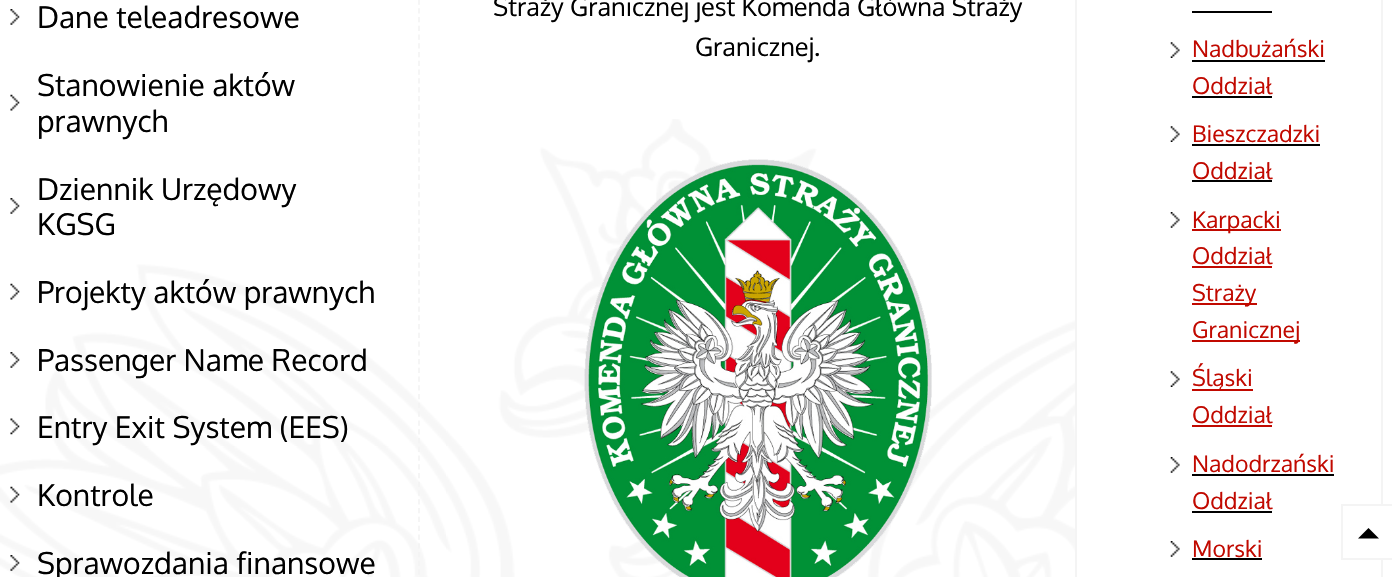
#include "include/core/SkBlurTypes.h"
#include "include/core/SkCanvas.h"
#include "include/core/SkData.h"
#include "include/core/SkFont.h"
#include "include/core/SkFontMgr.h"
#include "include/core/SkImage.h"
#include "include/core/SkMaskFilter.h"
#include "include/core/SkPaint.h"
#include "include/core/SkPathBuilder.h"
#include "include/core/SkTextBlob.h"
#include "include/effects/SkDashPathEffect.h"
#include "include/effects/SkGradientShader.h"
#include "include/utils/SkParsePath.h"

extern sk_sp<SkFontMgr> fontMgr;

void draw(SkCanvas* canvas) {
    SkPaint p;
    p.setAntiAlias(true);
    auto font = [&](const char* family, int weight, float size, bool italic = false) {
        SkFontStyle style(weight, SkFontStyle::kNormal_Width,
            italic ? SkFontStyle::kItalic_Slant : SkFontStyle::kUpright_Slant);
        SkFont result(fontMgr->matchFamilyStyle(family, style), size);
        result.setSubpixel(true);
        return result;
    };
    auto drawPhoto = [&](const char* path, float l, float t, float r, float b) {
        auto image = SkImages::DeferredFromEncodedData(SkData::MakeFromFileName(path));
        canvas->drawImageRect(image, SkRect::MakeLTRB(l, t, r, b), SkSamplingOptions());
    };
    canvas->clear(0xFFFFFFFF);
    drawPhoto("media/1.png", 0, 119, 1075, 577);
    p.setStyle(SkPaint::kStroke_Style);
    p.setStrokeWidth(1.8f);
    p.setColor(0xFFF4F4F4);
    p.setPathEffect(SkDashPathEffect::Make({{5.25f, 3.52f}}, 0));
    canvas->drawPath(SkPathBuilder().moveTo(419, -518).lineTo(419, 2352).detach(), p);
    p.setPathEffect(nullptr);
    drawPhoto("media/2.png", 10, 9, 20, 25);
    auto font1 = font("Oxygen", 400, 30);
    p.setStyle(SkPaint::kFill_Style);
    p.setColor(0xFF000000);
    canvas->drawString("Dane teleadresowe", 37, 28, font1, p);
    drawPhoto("media/3.png", 10, 94, 20, 111);
    canvas->drawString("Stanowienie aktów", 37, 96, font1, p);
    canvas->drawString("prawnych", 37, 132, font1, p);
    drawPhoto("media/2.png", 10, 198, 20, 214);
    canvas->drawString("Dziennik Urzędowy", 37, 200, font1, p);
    canvas->drawString("KGSG", 37, 235, font1, p);
    drawPhoto("media/3.png", 10, 283, 20, 300);
    canvas->drawString("Projekty aktów prawnych", 37, 303, font1, p);
    drawPhoto("media/2.png", 10, 352, 20, 368);
    canvas->drawString("Passenger Name Record", 37, 371, font1, p);
    drawPhoto("media/4.png", 10, 418, 20, 435);
    canvas->drawString("Entry Exit System (EES)", 37, 438, font1, p);
    drawPhoto("media/5.png", 10, 486, 20, 503);
    canvas->drawString("Kontrole", 37, 506, font1, p);
    drawPhoto("media/6.png", 10, 555, 20, 571);
    canvas->drawString("Sprawozdania finansowe", 37, 574, font1, p);
    auto font2 = font("Oxygen", 400, 25.35f);
    canvas->drawString("Straży Granicznej jest Komenda Główna Straży", 493, 16, font2, p);
    canvas->drawString("Granicznej.", 695, 56, font2, p);
    drawPhoto("media/7.png", 584, 159, 932, 577);
    p.setStyle(SkPaint::kStroke_Style);
    p.setStrokeWidth(2);
    p.setColor(0xFFF4F4F4);
    canvas->drawRect(SkRect::MakeLTRB(1076, -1, 1382, 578), p);
    p.setStyle(SkPaint::kFill_Style);
    p.setColor(0xFF000000);
    canvas->drawRect(SkRect::MakeLTRB(1192, 11, 1272, 13), p);
    drawPhoto("media/8.png", 1170, 42, 1180, 58);
    auto font3 = font("Oxygen", 400, 23);
    p.setColor(0xFFC10900);
    canvas->drawString("Nadbużański", 1192, 57, font3, p);
    p.setColor(0xFF000000);
    canvas->drawRect(SkRect::MakeLTRB(1192, 60, 1325, 62), p);
    p.setColor(0xFFC10900);
    canvas->drawString("Oddział", 1192, 94, font3, p);
    p.setColor(0xFF000000);
    canvas->drawRect(SkRect::MakeLTRB(1192, 96, 1272, 98), p);
    drawPhoto("media/8.png", 1170, 126, 1180, 142);
    p.setColor(0xFFC10900);
    canvas->drawString("Bieszczadzki", 1192, 142, font3, p);
    p.setColor(0xFF000000);
    canvas->drawRect(SkRect::MakeLTRB(1192, 144, 1320, 146), p);
    p.setColor(0xFFC10900);
    canvas->drawString("Oddział", 1192, 179, font3, p);
    p.setColor(0xFF000000);
    canvas->drawRect(SkRect::MakeLTRB(1192, 180, 1272, 182), p);
    drawPhoto("media/9.png", 1170, 212, 1180, 228);
    p.setColor(0xFFC10900);
    canvas->drawRect(SkRect::MakeLTRB(1192, 229, 1281, 231), p);
    canvas->drawString("Karpacki", 1192, 228, font3, p);
    canvas->drawString("Oddział", 1192, 264, font3, p);
    canvas->drawRect(SkRect::MakeLTRB(1192, 266, 1272, 268), p);
    canvas->drawRect(SkRect::MakeLTRB(1192, 303, 1257, 305), p);
    canvas->drawString("Straży", 1192, 301, font3, p);
    canvas->drawRect(SkRect::MakeLTRB(1192, 340, 1300, 342), p);
    canvas->drawString("Granicznej", 1192, 338, font3, p);
    drawPhoto("media/8.png", 1170, 371, 1180, 387);
    canvas->drawRect(SkRect::MakeLTRB(1192, 389, 1253, 391), p);
    canvas->drawString("Śląski", 1192, 386, font3, p);
    canvas->drawString("Oddział", 1192, 423, font3, p);
    canvas->drawRect(SkRect::MakeLTRB(1192, 425, 1272, 427), p);
    drawPhoto("media/9.png", 1170, 457, 1180, 473);
    canvas->drawString("Nadodrzański", 1192, 472, font3, p);
    p.setColor(0xFF000000);
    canvas->drawRect(SkRect::MakeLTRB(1192, 474, 1334, 476), p);
    p.setColor(0xFFC10900);
    canvas->drawString("Oddział", 1192, 509, font3, p);
    p.setColor(0xFF000000);
    canvas->drawRect(SkRect::MakeLTRB(1192, 511, 1272, 513), p);
    drawPhoto("media/9.png", 1170, 541, 1180, 557);
    p.setColor(0xFFC10900);
    canvas->drawString("Morski", 1192, 557, font3, p);
    p.setColor(0xFF000000);
    canvas->drawRect(SkRect::MakeLTRB(1192, 558, 1262, 560), p);
    p.setColor(0xFFFFFFFF);
    canvas->drawRect(SkRect::MakeLTRB(1381, 506, 1383, 558), p);
    p.setStyle(SkPaint::kStroke_Style);
    p.setColor(0xFFF4F4F4);
    canvas->drawRect(SkRect::MakeLTRB(1342, 505, 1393, 559), p);
    p.setStyle(SkPaint::kFill_Style);
    p.setColor(0xFF000000);
    canvas->drawPath(SkPathBuilder().moveTo(1358, 538.5f).lineTo(1379, 538.5f).lineTo(1368.5f, 528).close().detach(), p);
}
